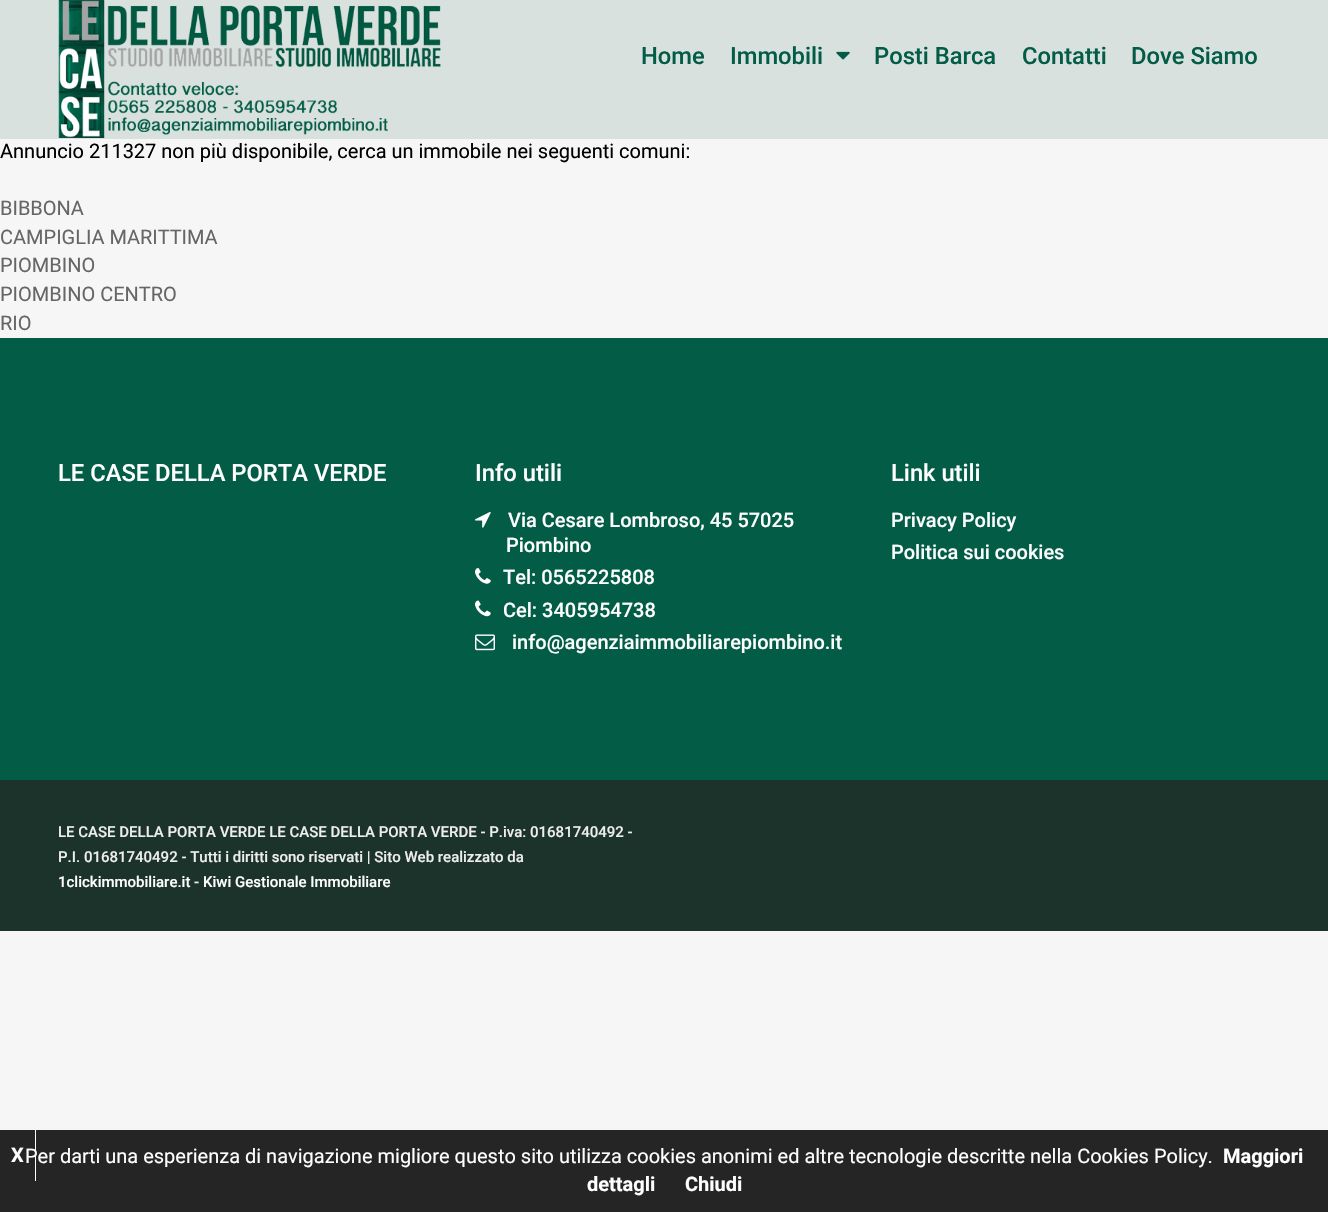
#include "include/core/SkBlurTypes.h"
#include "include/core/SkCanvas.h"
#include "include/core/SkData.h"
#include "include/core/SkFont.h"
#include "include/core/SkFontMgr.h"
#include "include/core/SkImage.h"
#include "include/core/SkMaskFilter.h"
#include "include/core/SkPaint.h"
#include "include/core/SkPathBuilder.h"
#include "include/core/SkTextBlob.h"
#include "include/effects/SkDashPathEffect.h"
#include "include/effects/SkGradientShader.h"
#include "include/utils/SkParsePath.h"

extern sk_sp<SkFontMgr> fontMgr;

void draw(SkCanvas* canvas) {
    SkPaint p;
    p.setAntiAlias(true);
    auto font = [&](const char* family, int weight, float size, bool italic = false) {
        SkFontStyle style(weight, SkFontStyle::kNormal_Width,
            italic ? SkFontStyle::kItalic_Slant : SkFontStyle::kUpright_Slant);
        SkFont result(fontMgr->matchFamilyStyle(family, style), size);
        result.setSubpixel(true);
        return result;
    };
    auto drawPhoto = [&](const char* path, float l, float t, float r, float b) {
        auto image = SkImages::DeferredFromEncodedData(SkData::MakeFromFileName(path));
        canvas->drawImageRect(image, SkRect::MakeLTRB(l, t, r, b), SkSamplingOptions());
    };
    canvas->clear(0xFFF6F6F6);
    p.setColor(0xFFD9E1DE);
    canvas->drawRect(SkRect::MakeLTRB(0, 0, 1328, 139), p);
    drawPhoto("media/1.png", 58, 0, 441, 138);
    auto font1 = font("Roboto", 500, 23.75f);
    p.setColor(0xFF025C46);
    canvas->drawString("Home", 641, 64, font1, p);
    canvas->drawString("Immobili", 730, 64, font1, p);
    drawPhoto("media/2.png", 836, 51, 850, 60);
    {
        const struct { const char* s; float x, y; } items[] = {
            {"Posti Barca", 874, 64},
            {"Contatti", 1022, 64},
            {"Dove Siamo", 1131, 64},
        };
        for (auto [s, x, y] : items) {
            canvas->drawString(s, x, y, font1, p);
        }
    }
    auto font2 = font("Roboto", 400, 20);
    p.setColor(0xFF000000);
    canvas->drawString("Annuncio 211327 non più disponibile, cerca un immobile nei seguenti comuni:", 0, 158, font2, p);
    p.setColor(0xFF666666);
    {
        const struct { const char* s; float x, y; } items[] = {
            {"BIBBONA", 0, 215},
            {"CAMPIGLIA MARITTIMA", 0, 244},
            {"PIOMBINO", 0, 272},
            {"PIOMBINO CENTRO", 0, 301},
            {"RIO", 0, 330},
        };
        for (auto [s, x, y] : items) {
            canvas->drawString(s, x, y, font2, p);
        }
    }
    p.setColor(0xFF025C46);
    canvas->drawRect(SkRect::MakeLTRB(0, 338, 1328, 780), p);
    p.setColor(0xFFFFFFFF);
    canvas->drawString("LE CASE DELLA PORTA VERDE", 58, 481, font1, p);
    canvas->drawString("Info utili", 475, 481, font1, p);
    drawPhoto("media/3.png", 475, 512, 491, 528);
    auto font3 = font("Roboto", 500, 20);
    canvas->drawString("Via Cesare Lombroso, 45 57025", 508, 527, font3, p);
    canvas->drawString("Piombino", 506, 552, font3, p);
    drawPhoto("media/4.png", 475, 568, 491, 584);
    canvas->drawString("Tel: 0565225808", 503, 584, font3, p);
    drawPhoto("media/5.png", 475, 600, 491, 617);
    canvas->drawString("Cel: 3405954738", 503, 617, font3, p);
    drawPhoto("media/6.png", 475, 634, 495, 651);
    canvas->drawString("info@agenziaimmobiliarepiombino.it", 512, 649, font3, p);
    canvas->drawString("Link utili", 891, 481, font1, p);
    canvas->drawString("Privacy Policy", 891, 527, font3, p);
    canvas->drawString("Politica sui cookies", 891, 559, font3, p);
    p.setColor(0xFF1C332B);
    canvas->drawRect(SkRect::MakeLTRB(0, 780, 1328, 931), p);
    auto font4 = font("Roboto", 500, 15);
    p.setColor(0xFFEEEEEE);
    canvas->drawString("LE CASE DELLA PORTA VERDE LE CASE DELLA PORTA VERDE - P.iva: 01681740492 -", 58, 837, font4, p);
    canvas->drawString("P.I. 01681740492 - Tutti i diritti sono riservati | Sito Web realizzato da", 58, 862, font4, p);
    p.setColor(0xFFFFFFFF);
    canvas->drawString("1clickimmobiliare.it", 58, 887, font4, p);
    p.setColor(0xFFEEEEEE);
    canvas->drawString("-", 194, 887, font4, p);
    p.setColor(0xFFFFFFFF);
    canvas->drawString("Kiwi Gestionale Immobiliare", 203, 887, font4, p);
    p.setColor(0xFF252525);
    canvas->drawRect(SkRect::MakeLTRB(0, 1130, 1328, 1212), p);
    p.setColor(0xFFFFFFFF);
    canvas->drawString("Per darti una esperienza di navigazione migliore questo sito utilizza cookies anonimi ed altre tecnologie descritte nella Cookies Policy.", 25, 1163, font2, p);
    p.setColor(0xFFFEFEFE);
    canvas->drawRect(SkRect::MakeLTRB(35, 1130, 36, 1181), p);
    auto font5 = font("Roboto", 700, 20);
    p.setColor(0xFFFFFFFF);
    {
        const struct { const char* s; float x, y; } items[] = {
            {"X", 11, 1162},
            {"Maggiori", 1223, 1163},
            {"dettagli", 587, 1191},
            {"Chiudi", 685, 1191},
        };
        for (auto [s, x, y] : items) {
            canvas->drawString(s, x, y, font5, p);
        }
    }
}
